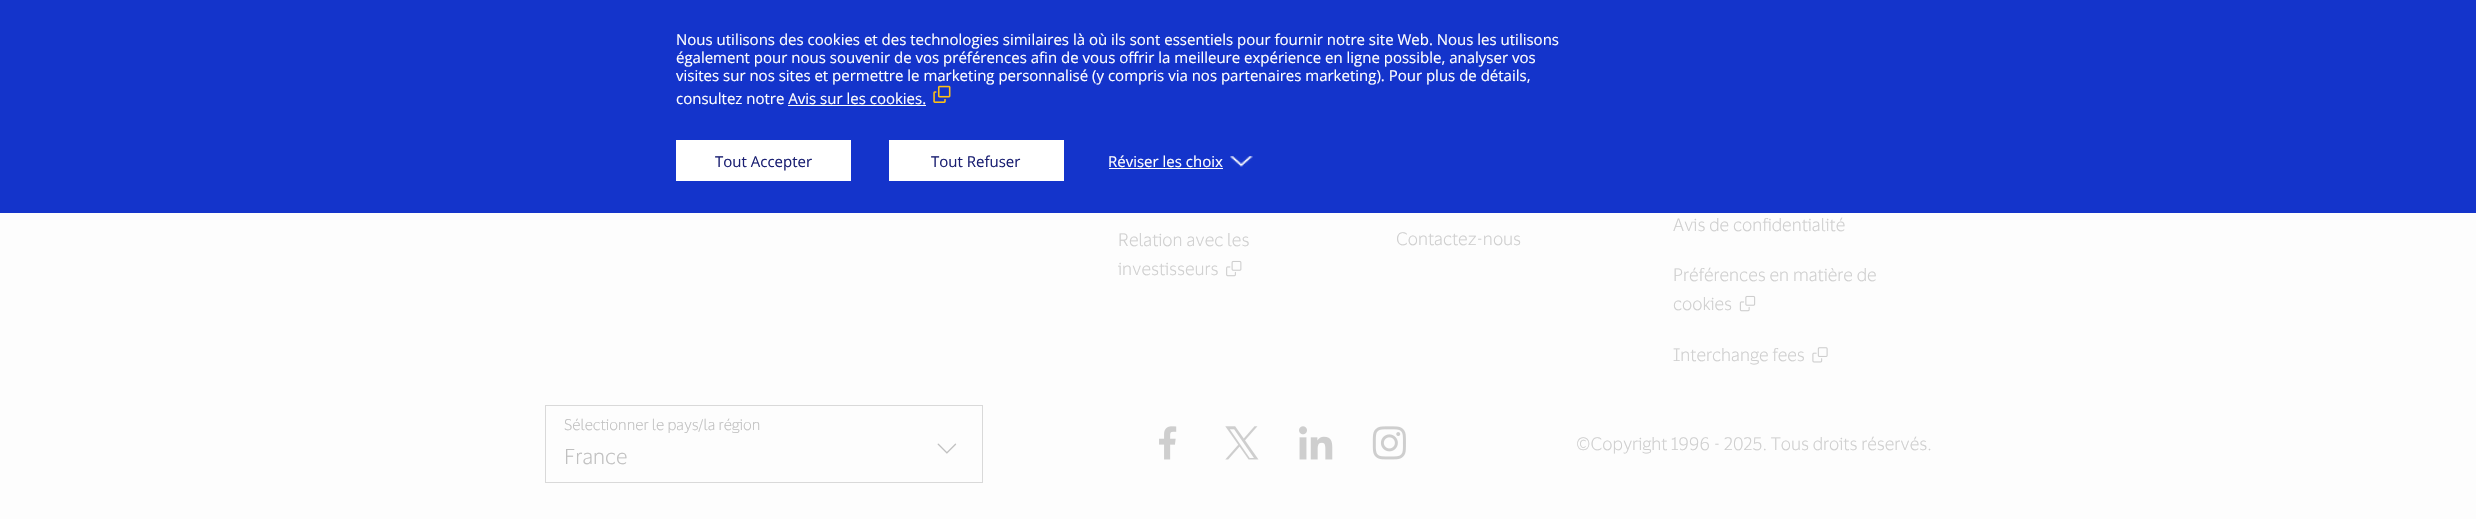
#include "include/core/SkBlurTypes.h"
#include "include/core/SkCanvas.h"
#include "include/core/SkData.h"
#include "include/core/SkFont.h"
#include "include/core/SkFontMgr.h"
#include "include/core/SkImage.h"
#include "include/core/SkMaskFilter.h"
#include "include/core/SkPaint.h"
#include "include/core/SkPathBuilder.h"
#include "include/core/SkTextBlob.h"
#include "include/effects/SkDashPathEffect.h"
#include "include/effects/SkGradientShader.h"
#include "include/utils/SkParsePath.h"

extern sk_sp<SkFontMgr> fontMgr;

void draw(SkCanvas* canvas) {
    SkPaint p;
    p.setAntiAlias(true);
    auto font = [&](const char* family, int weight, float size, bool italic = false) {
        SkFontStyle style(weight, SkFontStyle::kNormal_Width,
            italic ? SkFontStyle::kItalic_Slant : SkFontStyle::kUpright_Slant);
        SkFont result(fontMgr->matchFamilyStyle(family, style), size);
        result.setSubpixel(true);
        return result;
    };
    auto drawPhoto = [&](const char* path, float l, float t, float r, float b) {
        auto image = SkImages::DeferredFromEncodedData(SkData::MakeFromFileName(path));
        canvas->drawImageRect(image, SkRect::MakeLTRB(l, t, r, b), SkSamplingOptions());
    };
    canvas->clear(0xFFFDFDFD);
    p.setColor(0xFF1434CB);
    canvas->drawRect(SkRect::MakeLTRB(0, 0, 2476, 213), p);
    auto font1 = font("Open Sans", 400, 15);
    p.setColor(0xFFFFFFFF);
    {
        const struct { const char* s; float x, y; } items[] = {
            {"Nous utilisons des cookies et des technologies similaires là où ils sont essentiels pour fournir notre site Web. Nous les utilisons", 676, 45},
            {"également pour nous souvenir de vos préférences afin de vous offrir la meilleure expérience en ligne possible, analyser vos", 676, 63},
            {"visites sur nos sites et permettre le marketing personnalisé (y compris via nos partenaires marketing). Pour plus de détails,", 676, 81},
        };
        for (auto [s, x, y] : items) {
            canvas->drawString(s, x, y, font1, p);
        }
    }
    drawPhoto("media/1.png", 933, 85, 951, 103);
    canvas->drawRect(SkRect::MakeLTRB(788, 105, 926, 106), p);
    canvas->drawString("consultez notre Avis sur les cookies.", 676, 104, font1, p);
    canvas->drawRect(SkRect::MakeLTRB(676, 140, 851, 181), p);
    p.setColor(0xFF1A1F72);
    canvas->drawString("Tout Accepter", 715, 167, font1, p);
    p.setColor(0xFFFFFFFF);
    canvas->drawRect(SkRect::MakeLTRB(889, 140, 1064, 181), p);
    p.setColor(0xFF1A1F72);
    canvas->drawString("Tout Refuser", 931, 167, font1, p);
    p.setColor(0xFFFFFFFF);
    canvas->drawString("Réviser les choix", 1108, 167, font1, p);
    canvas->drawRect(SkRect::MakeLTRB(1109, 168, 1223, 169), p);
    drawPhoto("media/2.png", 1230, 156, 1253, 167);
    auto font2 = font("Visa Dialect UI", 300, 17.5f);
    p.setColor(0xFFCECECE);
    canvas->drawString("Relation avec les", 1118, 246, font2, p);
    canvas->drawString("investisseurs", 1118, 275, font2, p);
    drawPhoto("media/3.png", 1226, 260, 1242, 277);
    {
        const struct { const char* s; float x, y; } items[] = {
            {"Contactez-nous", 1396, 245},
            {"Avis de confidentialité", 1673, 231},
            {"Préférences en matière de", 1673, 281},
            {"cookies", 1673, 310},
        };
        for (auto [s, x, y] : items) {
            canvas->drawString(s, x, y, font2, p);
        }
    }
    drawPhoto("media/4.png", 1739, 295, 1756, 312);
    canvas->drawString("Interchange fees", 1673, 361, font2, p);
    drawPhoto("media/5.png", 1812, 347, 1828, 363);
    p.setStyle(SkPaint::kStroke_Style);
    p.setStrokeWidth(1);
    p.setColor(0xFFD9D9D9);
    canvas->drawRect(SkRect::MakeLTRB(545.5f, 405.5f, 982.5f, 482.5f), p);
    auto font3 = font("Visa Dialect UI", 300, 15);
    p.setStyle(SkPaint::kFill_Style);
    p.setColor(0xFFC0C0C0);
    canvas->drawString("Sélectionner le pays/la région", 564, 430, font3, p);
    auto font4 = font("Visa Dialect UI", 300, 21);
    canvas->drawString("France", 564, 464, font4, p);
    drawPhoto("media/6.png", 937, 443, 957, 454);
    drawPhoto("media/7.png", 1159, 426, 1177, 460);
    drawPhoto("media/8.png", 1225, 426, 1259, 460);
    drawPhoto("media/9.png", 1299, 426, 1333, 460);
    drawPhoto("media/10.png", 1372, 426, 1406, 460);
    p.setColor(0xFFCECECE);
    canvas->drawString("©Copyright 1996 - 2025. Tous droits réservés.", 1576, 450, font2, p);
}
